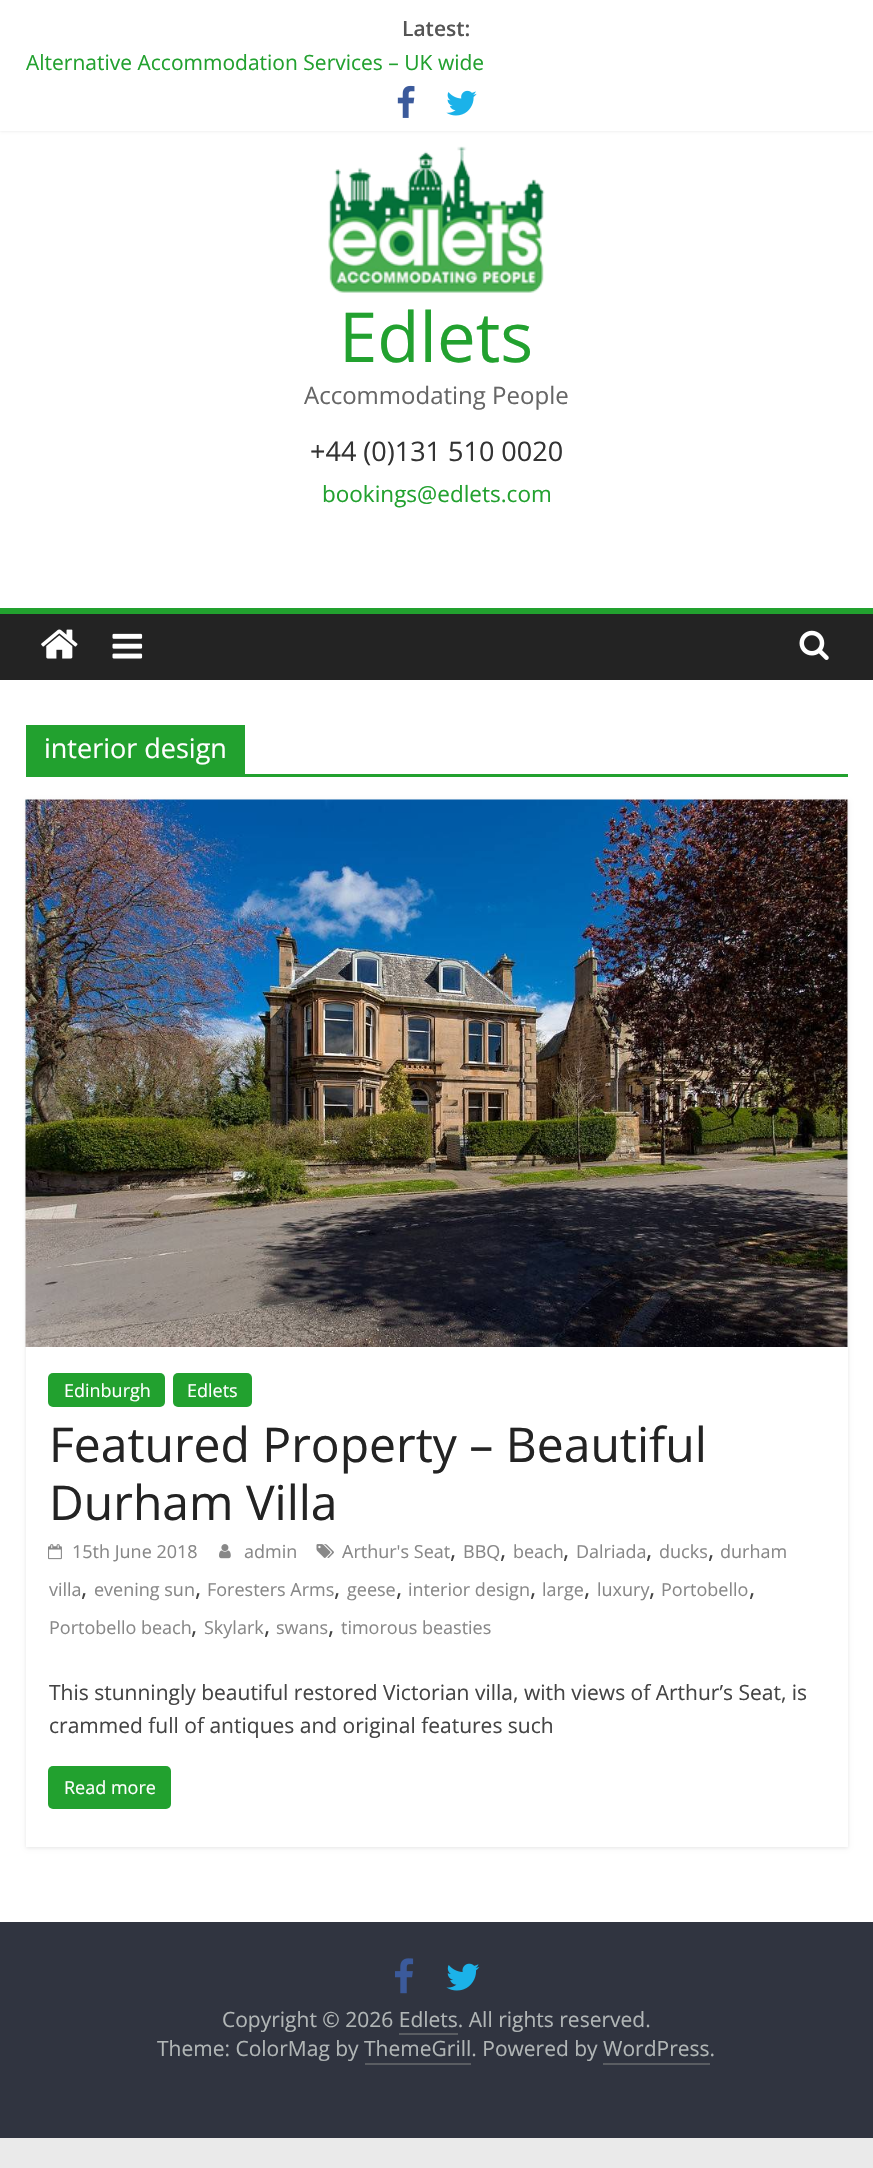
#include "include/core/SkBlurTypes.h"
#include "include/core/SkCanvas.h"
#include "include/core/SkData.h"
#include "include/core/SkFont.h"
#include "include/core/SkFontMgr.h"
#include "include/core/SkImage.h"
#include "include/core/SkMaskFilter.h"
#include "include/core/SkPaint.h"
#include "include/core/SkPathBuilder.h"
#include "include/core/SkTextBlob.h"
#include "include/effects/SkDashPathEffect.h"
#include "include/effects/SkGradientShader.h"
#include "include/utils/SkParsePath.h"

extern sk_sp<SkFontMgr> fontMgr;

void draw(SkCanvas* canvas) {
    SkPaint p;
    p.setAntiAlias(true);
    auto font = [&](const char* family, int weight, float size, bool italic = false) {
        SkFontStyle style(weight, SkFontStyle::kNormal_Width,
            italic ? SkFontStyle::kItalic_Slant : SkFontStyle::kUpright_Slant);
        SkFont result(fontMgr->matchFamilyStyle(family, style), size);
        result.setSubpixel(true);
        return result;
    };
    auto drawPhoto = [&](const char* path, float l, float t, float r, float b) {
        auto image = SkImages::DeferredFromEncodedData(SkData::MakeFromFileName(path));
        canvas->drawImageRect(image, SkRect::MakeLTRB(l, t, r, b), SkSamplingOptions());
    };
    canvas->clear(0xFFEAEAEA);
    p.setColor(0xFFFFFFFF);
    canvas->drawRect(SkRect::MakeLTRB(0, 131, 873, 608), p);
    p.setColor(0x1A000000);
    p.setMaskFilter(SkMaskFilter::MakeBlur(kNormal_SkBlurStyle, 1.5f));
    canvas->drawRect(SkRect::MakeLTRB(0, 0, 873, 131), p);
    p.setMaskFilter(nullptr);
    p.setColor(0xFFFFFFFF);
    canvas->drawRect(SkRect::MakeLTRB(0, 0, 873, 131), p);
    auto font1 = font("Open Sans", 600, 21);
    p.setColor(0xFF555555);
    canvas->drawString("Latest:", 402, 36, font1, p);
    auto font2 = font("Open Sans", 400, 21);
    p.setColor(0xFF22A12F);
    canvas->drawString("Alternative Accommodation Services – UK wide", 26, 70, font2, p);
    drawPhoto("media/1.png", 397, 85, 415, 118);
    drawPhoto("media/2.png", 446, 90, 477, 116);
    drawPhoto("media/3.png", 328, 146, 545, 293);
    auto font3 = font("Open Sans", 400, 69);
    canvas->drawString("Edlets", 339, 362, font3, p);
    auto font4 = font("Open Sans", 400, 24);
    p.setColor(0xFF666666);
    canvas->drawString("Accommodating People", 304, 404, font4, p);
    auto font5 = font("Open Sans", 400, 27);
    p.setColor(0xFF333333);
    canvas->drawString("+44 (0)131 510 0020", 310, 461, font5, p);
    auto font6 = font("Open Sans", 400, 22.5f);
    p.setColor(0xFF22A12F);
    canvas->drawString("bookings@edlets.com", 322, 502, font6, p);
    p.setColor(0xFF232323);
    canvas->drawRect(SkRect::MakeLTRB(0, 614, 873, 680), p);
    p.setColor(0xFF22A12F);
    canvas->drawRect(SkRect::MakeLTRB(0, 608, 873, 614), p);
    drawPhoto("media/4.png", 41, 629, 78, 659);
    drawPhoto("media/5.png", 112, 633, 143, 659);
    drawPhoto("media/6.png", 799, 630, 829, 660);
    {
        const struct { float l, t, r, b; SkColor color; } items[] = {
            {0, 680, 873, 1922, 0xFFFFFFFF},
            {26, 774, 848, 777, 0xFF22A12F},
            {26, 725, 245, 774, 0xFF22A12F},
        };
        for (auto [l, t, r, b, color] : items) {
            p.setColor(color);
            canvas->drawRect(SkRect::MakeLTRB(l, t, r, b), p);
        }
    }
    p.setColor(0xFFFFFFFF);
    canvas->drawString("interior design", 44, 758, font5, p);
    canvas->save();
    canvas->clipPath(SkPathBuilder(SkPathFillType::kEvenOdd).moveTo(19, 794).lineTo(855, 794).lineTo(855, 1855).lineTo(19, 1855).close().moveTo(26, 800).lineTo(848, 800).lineTo(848, 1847).lineTo(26, 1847).close().detach(), true);
    p.setColor(0x1A000000);
    p.setMaskFilter(SkMaskFilter::MakeBlur(kNormal_SkBlurStyle, 2));
    canvas->drawRect(SkRect::MakeLTRB(26, 801, 848, 1848), p);
    p.setMaskFilter(nullptr);
    canvas->restore();
    drawPhoto("media/7.png", 25, 799, 848, 1347);
    p.setColor(0xFF22A12F);
    canvas->drawRoundRect(SkRect::MakeLTRB(48, 1373, 165, 1407), 5, 5, p);
    auto font7 = font("Open Sans", 400, 18);
    p.setColor(0xFFFFFFFF);
    canvas->drawString("Edinburgh", 64, 1397, font7, p);
    p.setColor(0xFF22A12F);
    canvas->drawRoundRect(SkRect::MakeLTRB(173, 1373, 252, 1407), 5, 5, p);
    p.setColor(0xFFFFFFFF);
    canvas->drawString("Edlets", 187, 1397, font7, p);
    auto font8 = font("Open Sans", 400, 48);
    p.setColor(0xFF232323);
    canvas->drawString("Featured Property – Beautiful", 49, 1462, font8, p);
    canvas->drawString("Durham Villa", 49, 1520, font8, p);
    drawPhoto("media/8.png", 316, 1544, 334, 1558);
    p.setColor(0xFF888888);
    canvas->drawString("Arthur's Seat", 342, 1558, font7, p);
    p.setColor(0xFF444444);
    canvas->drawString(",", 450, 1558, font4, p);
    p.setColor(0xFF888888);
    canvas->drawString("BBQ", 463, 1558, font7, p);
    p.setColor(0xFF444444);
    canvas->drawString(",", 500, 1558, font4, p);
    p.setColor(0xFF888888);
    canvas->drawString("beach", 513, 1558, font7, p);
    p.setColor(0xFF444444);
    canvas->drawString(",", 563, 1558, font4, p);
    p.setColor(0xFF888888);
    canvas->drawString("Dalriada", 576, 1558, font7, p);
    p.setColor(0xFF444444);
    canvas->drawString(",", 646, 1558, font4, p);
    p.setColor(0xFF888888);
    canvas->drawString("ducks", 659, 1558, font7, p);
    p.setColor(0xFF444444);
    canvas->drawString(",", 708, 1558, font4, p);
    p.setColor(0xFF888888);
    canvas->drawString("durham", 720, 1558, font7, p);
    canvas->drawString("villa", 49, 1596, font7, p);
    p.setColor(0xFF444444);
    canvas->drawString(",", 81, 1596, font4, p);
    p.setColor(0xFF888888);
    canvas->drawString("evening sun", 94, 1596, font7, p);
    p.setColor(0xFF444444);
    canvas->drawString(",", 195, 1596, font4, p);
    p.setColor(0xFF888888);
    canvas->drawString("Foresters Arms", 207, 1596, font7, p);
    p.setColor(0xFF444444);
    canvas->drawString(",", 334, 1596, font4, p);
    p.setColor(0xFF888888);
    canvas->drawString("geese", 347, 1596, font7, p);
    p.setColor(0xFF444444);
    canvas->drawString(",", 396, 1596, font4, p);
    p.setColor(0xFF888888);
    canvas->drawString("interior design", 408, 1596, font7, p);
    p.setColor(0xFF444444);
    canvas->drawString(",", 530, 1596, font4, p);
    p.setColor(0xFF888888);
    canvas->drawString("large", 542, 1596, font7, p);
    p.setColor(0xFF444444);
    canvas->drawString(",", 584, 1596, font4, p);
    p.setColor(0xFF888888);
    canvas->drawString("luxury", 597, 1596, font7, p);
    p.setColor(0xFF444444);
    canvas->drawString(",", 649, 1596, font4, p);
    p.setColor(0xFF888888);
    canvas->drawString("Portobello", 661, 1596, font7, p);
    p.setColor(0xFF444444);
    canvas->drawString(",", 749, 1596, font4, p);
    p.setColor(0xFF888888);
    canvas->drawString("Portobello beach", 49, 1634, font7, p);
    p.setColor(0xFF444444);
    canvas->drawString(",", 191, 1634, font4, p);
    p.setColor(0xFF888888);
    canvas->drawString("Skylark", 204, 1634, font7, p);
    p.setColor(0xFF444444);
    canvas->drawString(",", 264, 1634, font4, p);
    p.setColor(0xFF888888);
    canvas->drawString("swans", 276, 1634, font7, p);
    p.setColor(0xFF444444);
    canvas->drawString(",", 328, 1634, font4, p);
    p.setColor(0xFF888888);
    canvas->drawString("timorous beasties", 341, 1634, font7, p);
    drawPhoto("media/9.png", 48, 1544, 62, 1560);
    canvas->drawString("15th June 2018", 72, 1558, font7, p);
    drawPhoto("media/10.png", 219, 1544, 231, 1559);
    canvas->drawString("admin", 244, 1558, font7, p);
    p.setColor(0xFF444444);
    canvas->drawString("This stunningly beautiful restored Victorian villa, with views of Arthur’s Seat, is", 49, 1700, font2, p);
    canvas->drawString("crammed full of antiques and original features such", 49, 1733, font2, p);
    p.setColor(0xFF22A12F);
    canvas->drawRoundRect(SkRect::MakeLTRB(48, 1766, 171, 1809), 5, 5, p);
    p.setColor(0xFFFFFFFF);
    canvas->drawString("Read more", 64, 1794, font7, p);
    p.setColor(0xFF303440);
    canvas->drawRect(SkRect::MakeLTRB(0, 1922, 873, 2138), p);
    drawPhoto("media/11.png", 395, 1958, 414, 1994);
    drawPhoto("media/12.png", 446, 1963, 480, 1991);
    p.setColor(0xFFB1B6B6);
    canvas->drawString("Copyright © 2026 Edlets. All rights reserved.", 222, 2027, font2, p);
    p.setColor(0xFF5A5D62);
    canvas->drawRect(SkRect::MakeLTRB(399, 2033, 458, 2035), p);
    p.setColor(0xFFB1B6B6);
    canvas->drawString("Theme: ColorMag by ThemeGrill. Powered by WordPress.", 157, 2056, font2, p);
    p.setColor(0xFF5A5D62);
    canvas->drawRect(SkRect::MakeLTRB(365, 2063, 471, 2065), p);
    canvas->drawRect(SkRect::MakeLTRB(603, 2063, 710, 2065), p);
}
